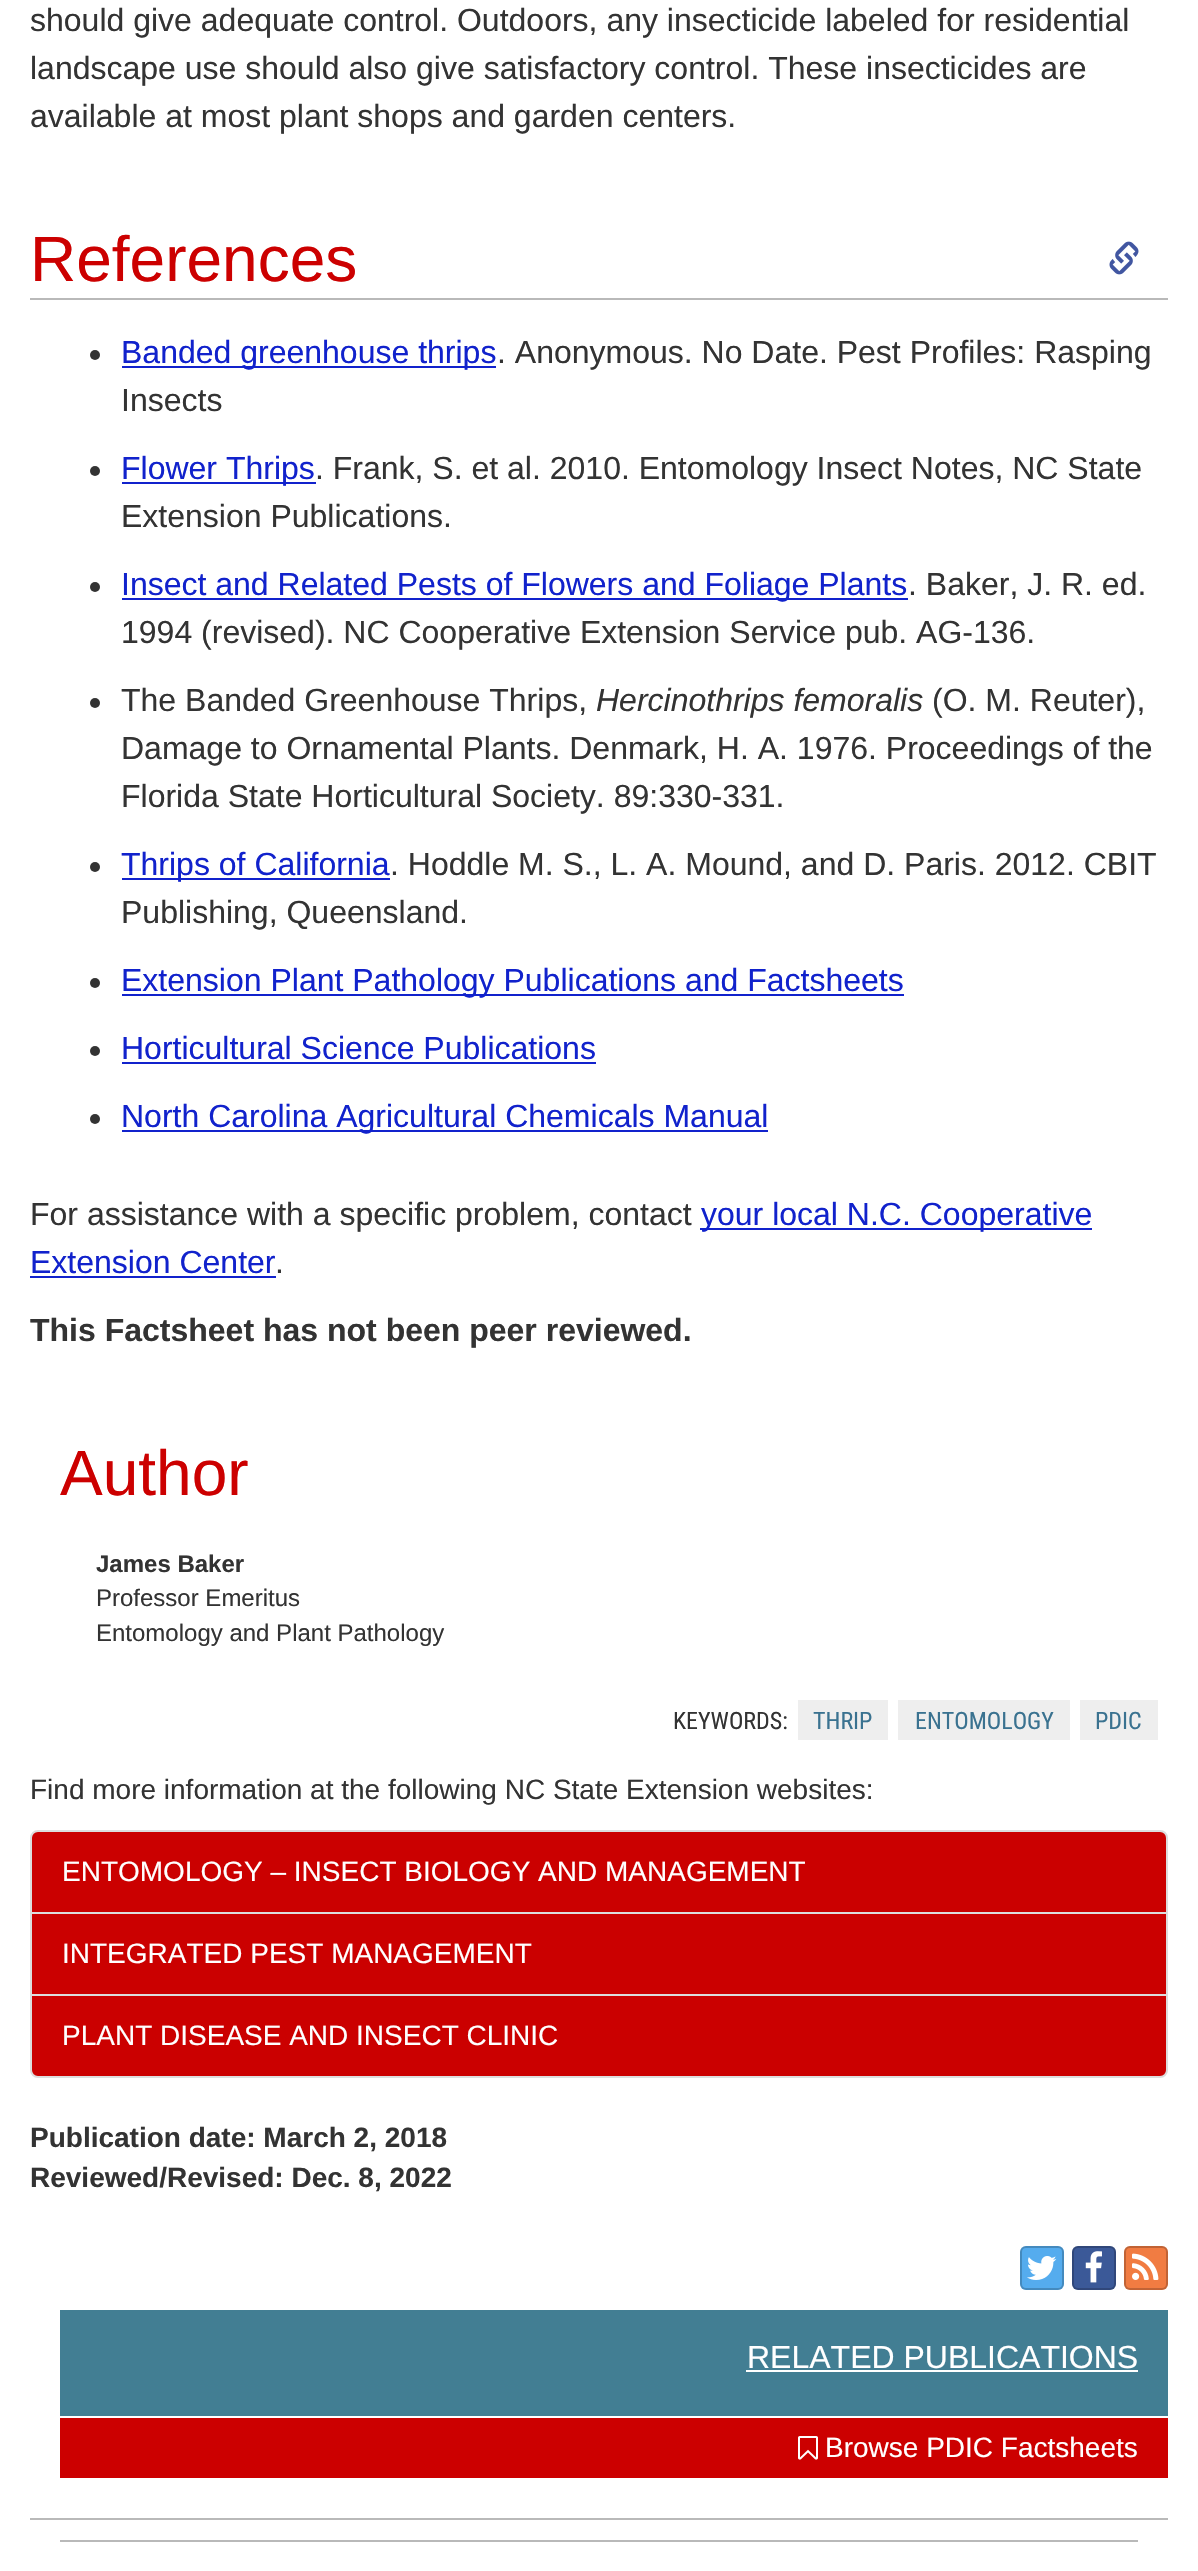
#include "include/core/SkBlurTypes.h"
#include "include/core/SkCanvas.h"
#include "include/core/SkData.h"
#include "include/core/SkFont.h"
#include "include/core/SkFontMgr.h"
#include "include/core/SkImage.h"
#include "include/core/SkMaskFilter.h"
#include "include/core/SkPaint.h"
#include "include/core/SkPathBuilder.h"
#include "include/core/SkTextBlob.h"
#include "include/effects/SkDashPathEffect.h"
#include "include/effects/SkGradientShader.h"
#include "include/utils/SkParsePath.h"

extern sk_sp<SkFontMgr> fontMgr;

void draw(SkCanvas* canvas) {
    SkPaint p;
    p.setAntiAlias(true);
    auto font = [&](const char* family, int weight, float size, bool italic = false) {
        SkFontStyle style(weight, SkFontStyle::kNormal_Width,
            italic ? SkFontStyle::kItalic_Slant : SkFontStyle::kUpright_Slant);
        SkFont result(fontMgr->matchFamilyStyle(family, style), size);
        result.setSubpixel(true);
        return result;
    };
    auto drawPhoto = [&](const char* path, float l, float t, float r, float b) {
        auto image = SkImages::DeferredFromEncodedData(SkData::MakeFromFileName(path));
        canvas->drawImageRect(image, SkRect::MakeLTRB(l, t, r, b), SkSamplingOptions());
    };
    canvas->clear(0xFFFFFFFF);
    auto font1 = font("Liberation Sans", 400, 32);
    p.setColor(0xFF333333);
    {
        const struct { const char* s; float x, y; } items[] = {
            {"should give adequate control. Outdoors, any insecticide labeled for residential", 30, 31},
            {"landscape use should also give satisfactory control. These insecticides are", 30, 79},
            {"available at most plant shops and garden centers.", 30, 127},
        };
        for (auto [s, x, y] : items) {
            canvas->drawString(s, x, y, font1, p);
        }
    }
    p.setColor(0xFFB9B9B9);
    canvas->drawRect(SkRect::MakeLTRB(30, 298, 1168, 300), p);
    auto font2 = font("Liberation Sans", 400, 64);
    p.setColor(0xFFCC0000);
    canvas->drawString("References", 30, 281, font2, p);
    drawPhoto("media/1.png", 1109, 241, 1139, 275);
    p.setColor(0xFF333333);
    canvas->drawCircle(95, 355, 5, p);
    p.setColor(0xFF1122CC);
    canvas->drawRect(SkRect::MakeLTRB(122, 366, 496, 368), p);
    canvas->drawString("Banded greenhouse thrips", 121, 363, font1, p);
    p.setColor(0xFF333333);
    canvas->drawString(". Anonymous. No Date. Pest Profiles: Rasping", 497, 363, font1, p);
    canvas->drawString("Insects", 121, 411, font1, p);
    canvas->drawCircle(95, 471, 5, p);
    p.setColor(0xFF1122CC);
    canvas->drawRect(SkRect::MakeLTRB(122, 482, 316, 484), p);
    canvas->drawString("Flower Thrips", 121, 479, font1, p);
    p.setColor(0xFF333333);
    canvas->drawString(". Frank, S. et al. 2010. Entomology Insect Notes, NC State", 315, 479, font1, p);
    canvas->drawString("Extension Publications.", 121, 527, font1, p);
    canvas->drawCircle(95, 587, 5, p);
    p.setColor(0xFF1122CC);
    canvas->drawRect(SkRect::MakeLTRB(122, 598, 908, 600), p);
    canvas->drawString("Insect and Related Pests of Flowers and Foliage Plants", 121, 595, font1, p);
    p.setColor(0xFF333333);
    canvas->drawString(". Baker, J. R. ed.", 908, 595, font1, p);
    canvas->drawString("1994 (revised). NC Cooperative Extension Service pub. AG-136.", 121, 643, font1, p);
    canvas->drawCircle(95, 703, 5, p);
    canvas->drawString("The Banded Greenhouse Thrips,", 121, 711, font1, p);
    auto font3 = font("Liberation Sans", 400, 32, true);
    canvas->drawString("Hercinothrips femoralis", 596, 711, font3, p);
    {
        const struct { const char* s; float x, y; } items[] = {
            {"(O. M. Reuter),", 932, 711},
            {"Damage to Ornamental Plants. Denmark, H. A. 1976. Proceedings of the", 121, 759},
            {"Florida State Horticultural Society. 89:330-331.", 121, 807},
        };
        for (auto [s, x, y] : items) {
            canvas->drawString(s, x, y, font1, p);
        }
    }
    canvas->drawCircle(95, 867, 5, p);
    p.setColor(0xFF1122CC);
    canvas->drawRect(SkRect::MakeLTRB(122, 878, 390, 880), p);
    canvas->drawString("Thrips of California", 121, 875, font1, p);
    p.setColor(0xFF333333);
    canvas->drawString(". Hoddle M. S., L. A. Mound, and D. Paris. 2012. CBIT", 390, 875, font1, p);
    canvas->drawString("Publishing, Queensland.", 121, 923, font1, p);
    canvas->drawCircle(95, 983, 5, p);
    p.setColor(0xFF1122CC);
    canvas->drawRect(SkRect::MakeLTRB(122, 994, 904, 996), p);
    canvas->drawString("Extension Plant Pathology Publications and Factsheets", 121, 991, font1, p);
    p.setColor(0xFF333333);
    canvas->drawCircle(95, 1051, 5, p);
    p.setColor(0xFF1122CC);
    canvas->drawString("Horticultural Science Publications", 121, 1059, font1, p);
    canvas->drawRect(SkRect::MakeLTRB(122, 1062, 596, 1064), p);
    p.setColor(0xFF333333);
    canvas->drawCircle(95, 1119, 5, p);
    p.setColor(0xFF1122CC);
    canvas->drawRect(SkRect::MakeLTRB(122, 1130, 768, 1132), p);
    canvas->drawString("North Carolina Agricultural Chemicals Manual", 121, 1127, font1, p);
    p.setColor(0xFF333333);
    canvas->drawString("For assistance with a specific problem, contact", 30, 1225, font1, p);
    p.setColor(0xFF1122CC);
    canvas->drawRect(SkRect::MakeLTRB(700, 1228, 1092, 1230), p);
    canvas->drawString("your local N.C. Cooperative", 701, 1225, font1, p);
    canvas->drawString("Extension Center", 30, 1273, font1, p);
    canvas->drawRect(SkRect::MakeLTRB(30, 1276, 276, 1278), p);
    p.setColor(0xFF333333);
    canvas->drawString(".", 275, 1273, font1, p);
    auto font4 = font("Liberation Sans", 700, 32);
    canvas->drawString("This Factsheet has not been peer reviewed.", 30, 1341, font4, p);
    p.setColor(0xFFCC0000);
    canvas->drawString("Author", 60, 1495, font2, p);
    auto font5 = font("Liberation Sans", 700, 24);
    p.setColor(0xFF333333);
    canvas->drawString("James Baker", 96, 1572, font5, p);
    auto font6 = font("Liberation Sans", 400, 24);
    canvas->drawString("Professor Emeritus", 96, 1606, font6, p);
    canvas->drawString("Entomology and Plant Pathology", 96, 1641, font6, p);
    auto font7 = font("Roboto Condensed", 400, 24);
    canvas->drawString("KEYWORDS:", 673, 1729, font7, p);
    p.setColor(0xFFEEEEEE);
    canvas->drawRect(SkRect::MakeLTRB(798, 1700, 888, 1740), p);
    p.setColor(0xFF3A7290);
    canvas->drawString("THRIP", 813, 1729, font7, p);
    p.setColor(0xFFEEEEEE);
    canvas->drawRect(SkRect::MakeLTRB(898, 1700, 1070, 1740), p);
    p.setColor(0xFF3A7290);
    canvas->drawString("ENTOMOLOGY", 915, 1729, font7, p);
    p.setColor(0xFFEEEEEE);
    canvas->drawRect(SkRect::MakeLTRB(1080, 1700, 1158, 1740), p);
    p.setColor(0xFF3A7290);
    canvas->drawString("PDIC", 1095, 1729, font7, p);
    auto font8 = font("Liberation Sans", 400, 28);
    p.setColor(0xFF333333);
    canvas->drawString("Find more information at the following NC State Extension websites:", 30, 1799, font8, p);
    p.setColor(0xFFCB0000);
    canvas->drawPath(SkPathBuilder().moveTo(38, 1831).lineTo(1160, 1831).cubicTo(1164, 1831, 1167, 1834, 1167, 1838).lineTo(1167, 1913).lineTo(31, 1913).lineTo(31, 1838).cubicTo(31, 1834, 34, 1831, 38, 1831).close().detach(), p);
    p.setStyle(SkPaint::kStroke_Style);
    p.setStrokeWidth(2);
    p.setColor(0xFFDDDDDD);
    canvas->drawPath(SkPathBuilder().moveTo(38, 1831).lineTo(1160, 1831).cubicTo(1164, 1831, 1167, 1834, 1167, 1838).lineTo(1167, 1913).lineTo(31, 1913).lineTo(31, 1838).cubicTo(31, 1834, 34, 1831, 38, 1831).close().detach(), p);
    p.setStyle(SkPaint::kFill_Style);
    p.setColor(0xFFFFFFFF);
    canvas->drawString("ENTOMOLOGY – INSECT BIOLOGY AND MANAGEMENT", 62, 1881, font8, p);
    p.setColor(0xFFCB0000);
    canvas->drawRect(SkRect::MakeLTRB(31, 1913, 1167, 1995), p);
    p.setStyle(SkPaint::kStroke_Style);
    p.setColor(0xFFDDDDDD);
    canvas->drawRect(SkRect::MakeLTRB(31, 1913, 1167, 1995), p);
    p.setStyle(SkPaint::kFill_Style);
    p.setColor(0xFFFFFFFF);
    canvas->drawString("INTEGRATED PEST MANAGEMENT", 62, 1963, font8, p);
    p.setColor(0xFFCB0000);
    canvas->drawPath(SkPathBuilder().moveTo(31, 1995).lineTo(1167, 1995).lineTo(1167, 2070).cubicTo(1167, 2074, 1164, 2077, 1160, 2077).lineTo(38, 2077).cubicTo(34, 2077, 31, 2074, 31, 2070).close().detach(), p);
    p.setStyle(SkPaint::kStroke_Style);
    p.setColor(0xFFDDDDDD);
    canvas->drawPath(SkPathBuilder().moveTo(31, 1995).lineTo(1167, 1995).lineTo(1167, 2070).cubicTo(1167, 2074, 1164, 2077, 1160, 2077).lineTo(38, 2077).cubicTo(34, 2077, 31, 2074, 31, 2070).close().detach(), p);
    p.setStyle(SkPaint::kFill_Style);
    p.setColor(0xFFFFFFFF);
    canvas->drawString("PLANT DISEASE AND INSECT CLINIC", 62, 2045, font8, p);
    auto font9 = font("Liberation Sans", 700, 28);
    p.setColor(0xFF333333);
    canvas->drawString("Publication date: March 2, 2018", 30, 2147, font9, p);
    canvas->drawString("Reviewed/Revised: Dec. 8, 2022", 30, 2187, font9, p);
    p.setColor(0xFF55ACEE);
    canvas->drawRoundRect(SkRect::MakeLTRB(1020, 2246, 1064, 2290), 6, 6, p);
    p.setStyle(SkPaint::kStroke_Style);
    p.setColor(0x33000000);
    canvas->drawRoundRect(SkRect::MakeLTRB(1021, 2247, 1063, 2289), 5, 5, p);
    drawPhoto("media/2.png", 1027, 2256, 1057, 2280);
    p.setStyle(SkPaint::kFill_Style);
    p.setColor(0xFF3B5998);
    canvas->drawRoundRect(SkRect::MakeLTRB(1072, 2246, 1116, 2290), 6, 6, p);
    p.setStyle(SkPaint::kStroke_Style);
    p.setColor(0x33000000);
    canvas->drawRoundRect(SkRect::MakeLTRB(1073, 2247, 1115, 2289), 5, 5, p);
    drawPhoto("media/3.png", 1085, 2251, 1102, 2283);
    p.setStyle(SkPaint::kFill_Style);
    p.setColor(0xFFF17C42);
    canvas->drawRoundRect(SkRect::MakeLTRB(1124, 2246, 1168, 2290), 6, 6, p);
    p.setStyle(SkPaint::kStroke_Style);
    p.setColor(0x33000000);
    canvas->drawRoundRect(SkRect::MakeLTRB(1125, 2247, 1167, 2289), 5, 5, p);
    drawPhoto("media/4.png", 1132, 2253, 1159, 2280);
    p.setStyle(SkPaint::kFill_Style);
    p.setColor(0xFF427E93);
    canvas->drawRect(SkRect::MakeLTRB(60, 2310, 1168, 2416), p);
    p.setColor(0xFFFFFFFF);
    canvas->drawString("RELATED PUBLICATIONS", 747, 2368, font1, p);
    canvas->drawRect(SkRect::MakeLTRB(746, 2370, 1138, 2372), p);
    p.setColor(0xFFCC0000);
    canvas->drawRect(SkRect::MakeLTRB(60, 2418, 1168, 2478), p);
    drawPhoto("media/5.png", 798, 2436, 818, 2460);
    p.setColor(0xFFFFFFFF);
    canvas->drawString("Browse PDIC Factsheets", 825, 2457, font8, p);
    p.setColor(0xFFB9B9B9);
    canvas->drawRect(SkRect::MakeLTRB(30, 2518, 1168, 2520), p);
    canvas->drawRect(SkRect::MakeLTRB(60, 2540, 1138, 2542), p);
}
